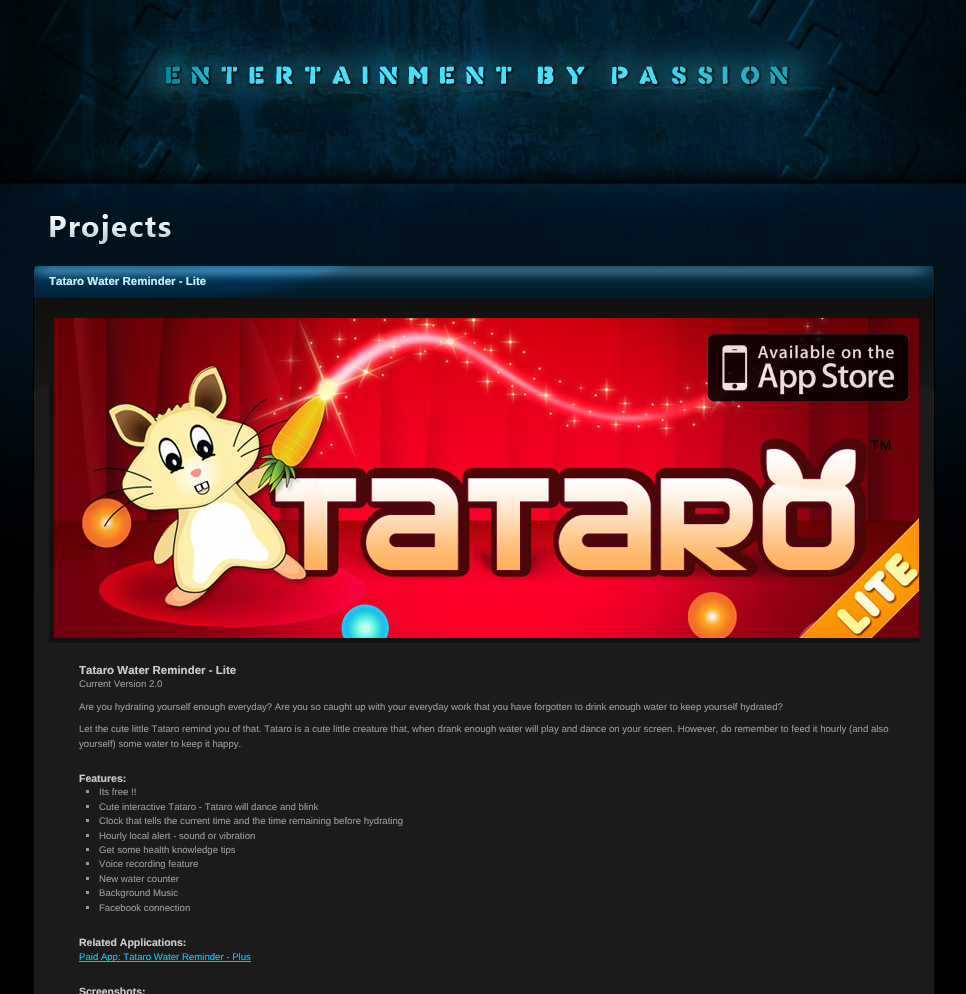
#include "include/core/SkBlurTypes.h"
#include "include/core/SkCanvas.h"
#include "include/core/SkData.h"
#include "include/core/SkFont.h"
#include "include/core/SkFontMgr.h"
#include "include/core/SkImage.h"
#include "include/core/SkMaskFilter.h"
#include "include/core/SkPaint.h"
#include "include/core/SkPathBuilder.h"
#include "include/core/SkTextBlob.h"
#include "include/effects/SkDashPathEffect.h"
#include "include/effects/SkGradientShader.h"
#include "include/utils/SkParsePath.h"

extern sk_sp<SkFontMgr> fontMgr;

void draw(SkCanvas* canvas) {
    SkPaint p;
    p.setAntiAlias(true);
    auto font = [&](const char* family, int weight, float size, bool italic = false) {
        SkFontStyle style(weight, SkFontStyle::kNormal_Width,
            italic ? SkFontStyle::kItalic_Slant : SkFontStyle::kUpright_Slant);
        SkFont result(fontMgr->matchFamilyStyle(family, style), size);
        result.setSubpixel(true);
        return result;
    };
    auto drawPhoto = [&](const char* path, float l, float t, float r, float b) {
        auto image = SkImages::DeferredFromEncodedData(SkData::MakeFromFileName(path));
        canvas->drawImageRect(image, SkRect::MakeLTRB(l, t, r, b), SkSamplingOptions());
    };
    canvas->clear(0xFF000000);
    drawPhoto("media/1.png", 0, 0, 966, 594);
    drawPhoto("media/2.png", 50, 214, 173, 246);
    p.setColor(0xFF1B1B1B);
    canvas->drawRoundRect(SkRect::MakeLTRB(33, 266, 935, 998), 4, 4, p);
    drawPhoto("media/3.png", 33, 266, 935, 387);
    p.setColor(0xFF000000);
    canvas->drawRect(SkRect::MakeLTRB(934, 268, 935, 994), p);
    canvas->drawRect(SkRect::MakeLTRB(33, 268, 34, 994), p);
    drawPhoto("media/4.png", 34, 266, 934, 298);
    auto font1 = font("Liberation Sans", 700, 11.5f);
    p.setColor(0xFFC3F6FF);
    canvas->drawString("Tataro Water Reminder - Lite", 49, 285, font1, p);
    p.setStyle(SkPaint::kStroke_Style);
    p.setStrokeWidth(5);
    p.setColor(0xFF121212);
    canvas->drawRect(SkRect::MakeLTRB(51.5f, 315.5f, 916.5f, 640.5f), p);
    drawPhoto("media/5.png", 54, 318, 919, 638);
    p.setStyle(SkPaint::kFill_Style);
    p.setColor(0xFFCCCCCC);
    canvas->drawString("Tataro Water Reminder - Lite", 79, 674, font1, p);
    auto font2 = font("Liberation Sans", 400, 9.6f);
    p.setColor(0xFF999999);
    {
        const struct { const char* s; float x, y; } items[] = {
            {"Current Version 2.0", 79, 687},
            {"Are you hydrating yourself enough everyday? Are you so caught up with your everyday work that you have forgotten to drink enough water to keep yourself hydrated?", 79, 710},
            {"Let the cute little Tataro remind you of that. Tataro is a cute little creature that, when drank enough water will play and dance on your screen. However, do remember to feed it hourly (and also", 79, 732},
            {"yourself) some water to keep it happy.", 79, 747},
        };
        for (auto [s, x, y] : items) {
            canvas->drawString(s, x, y, font2, p);
        }
    }
    auto font3 = font("Liberation Sans", 700, 10.5f);
    p.setColor(0xFFCCCCCC);
    canvas->drawString("Features:", 79, 782, font3, p);
    p.setColor(0xFF999999);
    canvas->drawRect(SkRect::MakeLTRB(86, 790, 89, 793), p);
    canvas->drawString("Its free !!", 99, 795, font2, p);
    canvas->drawRect(SkRect::MakeLTRB(86, 805, 89, 808), p);
    canvas->drawString("Cute interactive Tataro - Tataro will dance and blink", 99, 810, font2, p);
    canvas->drawRect(SkRect::MakeLTRB(86, 819, 89, 822), p);
    canvas->drawString("Clock that tells the current time and the time remaining before hydrating", 99, 824, font2, p);
    canvas->drawRect(SkRect::MakeLTRB(86, 834, 89, 837), p);
    canvas->drawString("Hourly local alert - sound or vibration", 99, 839, font2, p);
    canvas->drawRect(SkRect::MakeLTRB(86, 848, 89, 851), p);
    canvas->drawString("Get some health knowledge tips", 99, 853, font2, p);
    canvas->drawRect(SkRect::MakeLTRB(86, 862, 89, 865), p);
    canvas->drawString("Voice recording feature", 99, 867, font2, p);
    canvas->drawRect(SkRect::MakeLTRB(86, 877, 89, 880), p);
    canvas->drawString("New water counter", 99, 882, font2, p);
    canvas->drawRect(SkRect::MakeLTRB(86, 891, 89, 894), p);
    canvas->drawString("Background Music", 99, 896, font2, p);
    canvas->drawRect(SkRect::MakeLTRB(86, 906, 89, 909), p);
    canvas->drawString("Facebook connection", 99, 911, font2, p);
    p.setColor(0xFFCCCCCC);
    canvas->drawString("Related Applications:", 79, 946, font3, p);
    p.setColor(0xFF00CCFF);
    canvas->drawRect(SkRect::MakeLTRB(79, 961, 251, 962), p);
    canvas->drawString("Paid App: Tataro Water Reminder - Plus", 79, 960, font2, p);
    p.setColor(0xFFCCCCCC);
    canvas->drawString("Screenshots:", 79, 995, font3, p);
}
